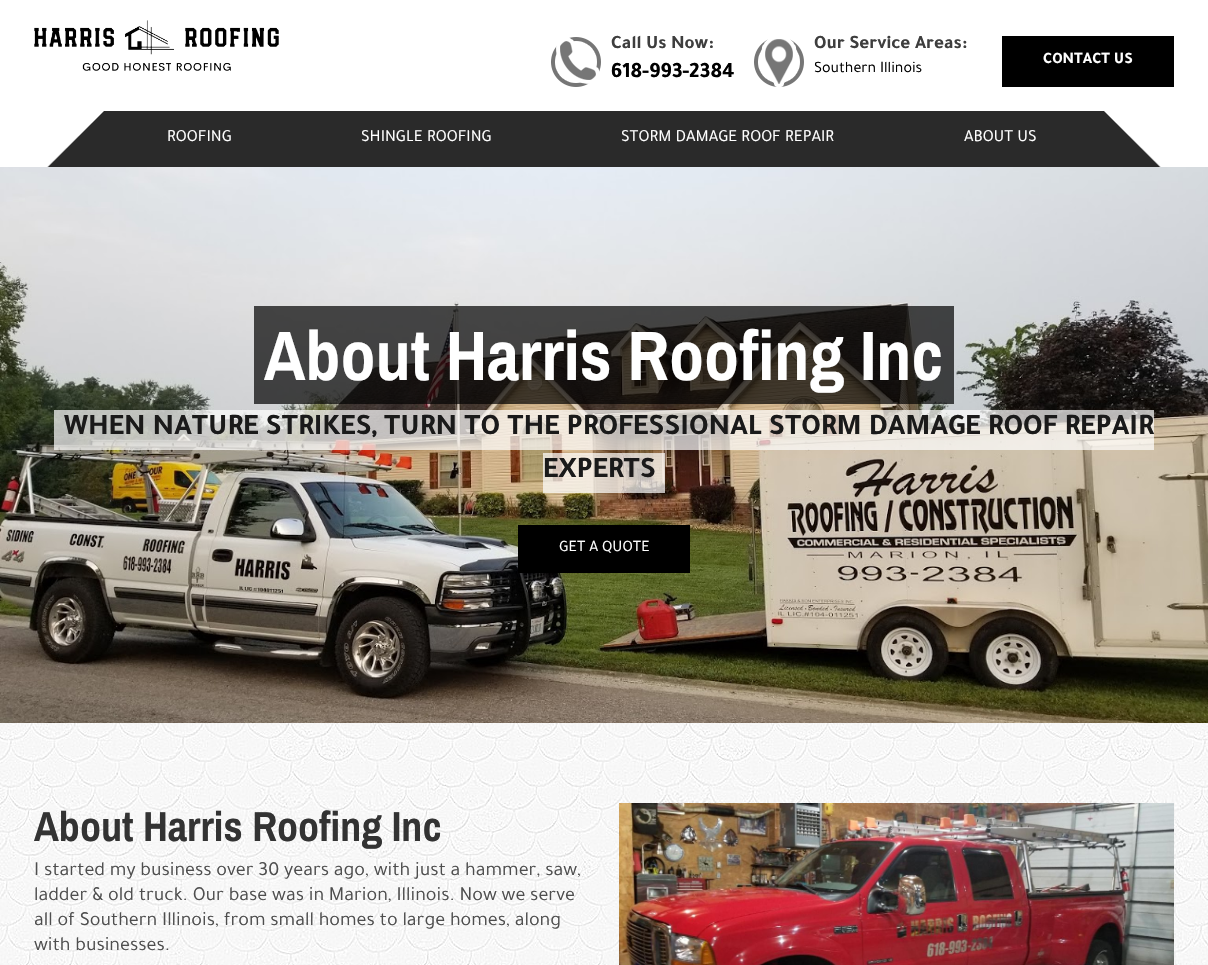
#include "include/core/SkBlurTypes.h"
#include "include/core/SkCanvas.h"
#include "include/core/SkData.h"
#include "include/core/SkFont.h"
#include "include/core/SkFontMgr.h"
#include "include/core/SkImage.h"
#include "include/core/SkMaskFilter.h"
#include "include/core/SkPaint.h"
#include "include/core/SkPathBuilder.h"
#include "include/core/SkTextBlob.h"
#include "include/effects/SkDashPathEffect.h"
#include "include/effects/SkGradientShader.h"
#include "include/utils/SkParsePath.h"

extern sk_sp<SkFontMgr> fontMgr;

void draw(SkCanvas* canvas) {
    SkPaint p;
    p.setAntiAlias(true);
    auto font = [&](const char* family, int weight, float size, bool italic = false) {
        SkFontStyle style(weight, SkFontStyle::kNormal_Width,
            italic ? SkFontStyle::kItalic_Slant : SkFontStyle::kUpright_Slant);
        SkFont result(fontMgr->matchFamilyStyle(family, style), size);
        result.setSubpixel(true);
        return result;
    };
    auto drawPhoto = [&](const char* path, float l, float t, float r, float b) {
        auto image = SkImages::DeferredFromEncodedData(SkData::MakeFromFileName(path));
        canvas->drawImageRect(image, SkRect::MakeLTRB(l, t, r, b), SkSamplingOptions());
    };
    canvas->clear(0xFFFFFFFF);
    drawPhoto("media/1.png", 34, 20, 279, 71);
    drawPhoto("media/2.png", 551, 37, 601, 87);
    auto font1 = font("Tajawal", 700, 19);
    p.setColor(0xFF3E3E3E);
    canvas->drawString("Call Us Now:", 611, 48, font1, p);
    auto font2 = font("Tajawal", 700, 22);
    p.setColor(0xFF000000);
    canvas->drawString("618-993-2384", 611, 77, font2, p);
    drawPhoto("media/3.png", 754, 39, 804, 87);
    p.setColor(0xFF3E3E3E);
    canvas->drawString("Our Service Areas:", 814, 48, font1, p);
    auto font3 = font("Tajawal", 400, 16);
    p.setColor(0xFF000000);
    canvas->drawString("Southern Illinois", 814, 72, font3, p);
    canvas->drawRect(SkRect::MakeLTRB(1002, 36, 1174, 87), p);
    auto font4 = font("Tajawal", 700, 16);
    p.setColor(0xFFFFFFFF);
    canvas->drawString("CONTACT US", 1043, 63, font4, p);
    drawPhoto("media/4.png", 47, 111, 1161, 167);
    p.setColor(0xFF2A2A2A);
    canvas->drawRect(SkRect::MakeLTRB(104, 111, 1104, 167), p);
    auto font5 = font("Tajawal", 400, 17);
    p.setColor(0xFFFFFFFF);
    {
        const struct { const char* s; float x, y; } items[] = {
            {"ROOFING", 167, 141},
            {"SHINGLE ROOFING", 361, 141},
            {"STORM DAMAGE ROOF REPAIR", 621, 141},
            {"ABOUT US", 964, 141},
        };
        for (auto [s, x, y] : items) {
            canvas->drawString(s, x, y, font5, p);
        }
    }
    drawPhoto("media/5.png", 0, 167, 1208, 723);
    p.setColor(0xB3000000);
    canvas->drawRect(SkRect::MakeLTRB(254, 306, 954, 404), p);
    auto font6 = font("Archivo Narrow", 700, 70);
    p.setColor(0xFFFFFFFF);
    canvas->drawString("About Harris Roofing Inc", 264, 380, font6, p);
    p.setColor(0xB3FFFFFF);
    canvas->drawRect(SkRect::MakeLTRB(54, 410, 1154, 450), p);
    auto font7 = font("Tajawal", 700, 30);
    p.setColor(0xFF1A1A1A);
    canvas->drawString("WHEN NATURE STRIKES, TURN TO THE PROFESSIONAL STORM DAMAGE ROOF REPAIR", 64, 434, font7, p);
    p.setColor(0xB3FFFFFF);
    canvas->drawRect(SkRect::MakeLTRB(543, 453, 665, 493), p);
    p.setColor(0xFF1A1A1A);
    canvas->drawString("EXPERTS", 543, 477, font7, p);
    p.setColor(0xFF000000);
    canvas->drawRect(SkRect::MakeLTRB(518, 525, 690, 573), p);
    p.setColor(0xFFFFFFFF);
    canvas->drawString("GET A QUOTE", 559, 551, font3, p);
    drawPhoto("media/6.png", 0, 723, 1208, 965);
    auto font8 = font("Archivo Narrow", 700, 42);
    p.setColor(0xFF333333);
    canvas->drawString("About Harris Roofing Inc", 34, 841, font8, p);
    auto font9 = font("Tajawal", 400, 20);
    p.setColor(0xFF4E4E4E);
    {
        const struct { const char* s; float x, y; } items[] = {
            {"I started my business over 30 years ago, with just a hammer, saw,", 34, 875},
            {"ladder & old truck. Our base was in Marion, Illinois. Now we serve", 34, 900},
            {"all of Southern Illinois, from small homes to large homes, along", 34, 925},
            {"with businesses.", 34, 950},
        };
        for (auto [s, x, y] : items) {
            canvas->drawString(s, x, y, font9, p);
        }
    }
    drawPhoto("media/7.png", 619, 803, 1174, 965);
}
